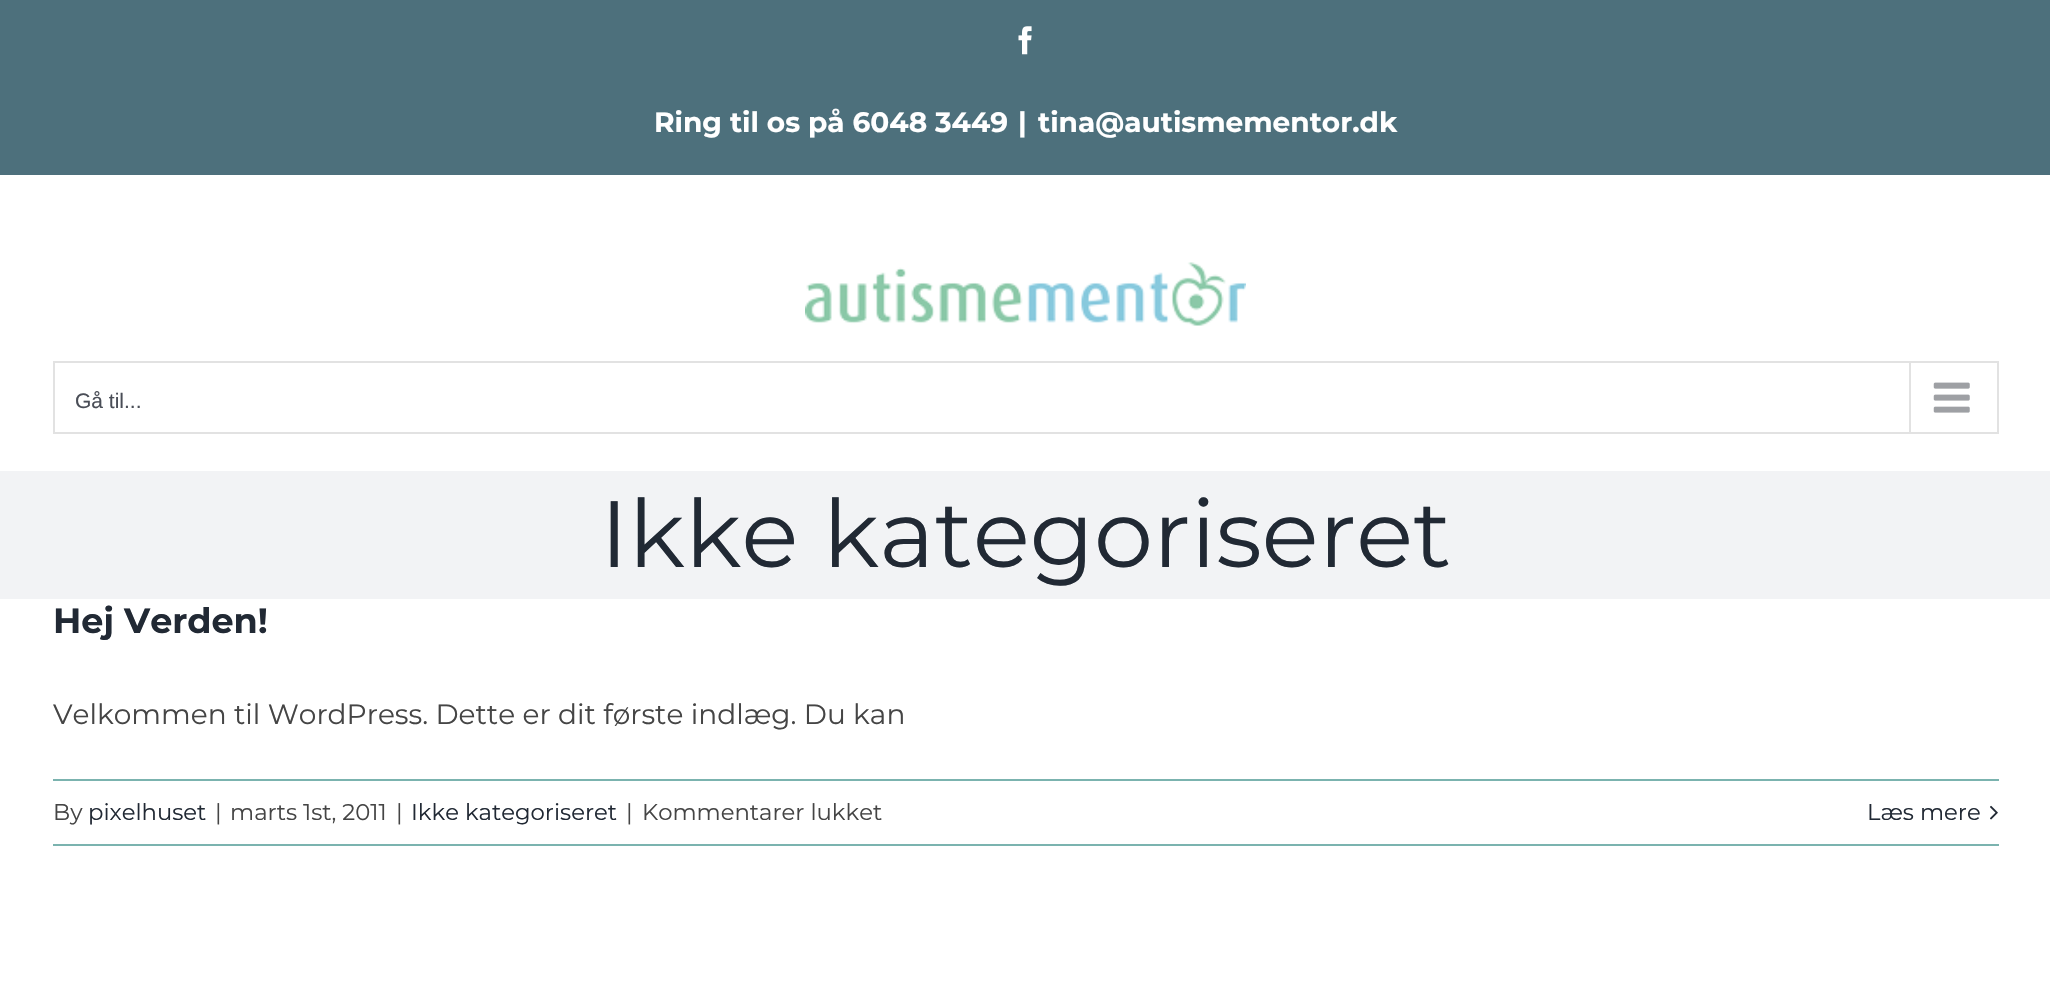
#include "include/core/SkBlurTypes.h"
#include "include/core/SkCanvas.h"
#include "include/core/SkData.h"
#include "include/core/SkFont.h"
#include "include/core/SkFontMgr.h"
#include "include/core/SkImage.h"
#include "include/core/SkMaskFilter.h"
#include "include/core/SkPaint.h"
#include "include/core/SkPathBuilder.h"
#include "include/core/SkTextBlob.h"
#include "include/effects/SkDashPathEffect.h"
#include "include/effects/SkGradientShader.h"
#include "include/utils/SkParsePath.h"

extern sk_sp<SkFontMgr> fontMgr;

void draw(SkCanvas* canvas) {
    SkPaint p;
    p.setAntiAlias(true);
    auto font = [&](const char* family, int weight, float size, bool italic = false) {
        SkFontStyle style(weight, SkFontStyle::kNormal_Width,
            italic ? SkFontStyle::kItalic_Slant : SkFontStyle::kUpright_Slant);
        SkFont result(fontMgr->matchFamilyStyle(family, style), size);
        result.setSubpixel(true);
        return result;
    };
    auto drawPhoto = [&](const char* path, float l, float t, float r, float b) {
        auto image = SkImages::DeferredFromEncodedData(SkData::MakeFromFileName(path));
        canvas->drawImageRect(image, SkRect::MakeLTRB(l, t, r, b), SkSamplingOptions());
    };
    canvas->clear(0xFFFFFFFF);
    p.setColor(0xFF4D707C);
    canvas->drawRect(SkRect::MakeLTRB(0, 0, 2050, 175), p);
    drawPhoto("media/1.png", 1018, 26, 1032, 55);
    auto font1 = font("Montserrat", 700, 28);
    p.setColor(0xFFFFFFFF);
    {
        const struct { const char* s; float x, y; } items[] = {
            {"Ring til os på 6048 3449", 654, 132},
            {"|", 1018, 132},
            {"tina@autismementor.dk", 1038, 132},
        };
        for (auto [s, x, y] : items) {
            canvas->drawString(s, x, y, font1, p);
        }
    }
    drawPhoto("media/2.png", 805, 262, 1246, 326);
    p.setStyle(SkPaint::kStroke_Style);
    p.setStrokeWidth(2);
    p.setColor(0xFFE2E2E2);
    canvas->drawRect(SkRect::MakeLTRB(54, 362, 1998, 433), p);
    auto font2 = font("Liberation Sans", 400, 21);
    p.setStyle(SkPaint::kFill_Style);
    p.setColor(0xFF4A4E57);
    canvas->drawString("Gå til...", 75, 408, font2, p);
    p.setColor(0xFFE2E2E2);
    canvas->drawRect(SkRect::MakeLTRB(1909, 362, 1911, 432), p);
    drawPhoto("media/3.png", 1933, 382, 1970, 413);
    p.setColor(0xFFF2F3F5);
    canvas->drawRect(SkRect::MakeLTRB(0, 471, 2050, 599), p);
    auto font3 = font("Montserrat", 400, 94);
    p.setColor(0xFF212934);
    canvas->drawString("Ikke kategoriseret", 600, 567, font3, p);
    auto font4 = font("Montserrat", 700, 35);
    canvas->drawString("Hej Verden!", 53, 633, font4, p);
    auto font5 = font("Montserrat", 400, 28);
    p.setColor(0xFF454545);
    canvas->drawString("Velkommen til WordPress. Dette er dit første indlæg. Du kan", 53, 724, font5, p);
    p.setColor(0xFF7BB3AF);
    canvas->drawRect(SkRect::MakeLTRB(53, 779, 1999, 781), p);
    canvas->drawRect(SkRect::MakeLTRB(53, 844, 1999, 846), p);
    auto font6 = font("Montserrat", 400, 22.75f);
    p.setColor(0xFF454545);
    canvas->drawString("By", 53, 820, font6, p);
    p.setColor(0xFF212934);
    canvas->drawString("pixelhuset", 88, 820, font6, p);
    p.setColor(0xFF454545);
    {
        const struct { const char* s; float x, y; } items[] = {
            {"|", 215, 820},
            {"marts 1st, 2011", 230, 820},
            {"|", 396, 820},
        };
        for (auto [s, x, y] : items) {
            canvas->drawString(s, x, y, font6, p);
        }
    }
    p.setColor(0xFF212934);
    canvas->drawString("Ikke kategoriseret", 411, 820, font6, p);
    p.setColor(0xFF454545);
    canvas->drawString("|", 626, 820, font6, p);
    canvas->drawString("Kommentarer lukket", 642, 820, font6, p);
    p.setColor(0xFF212934);
    canvas->drawString("Læs mere", 1867, 820, font6, p);
    drawPhoto("media/4.png", 1990, 805, 1998, 820);
}
